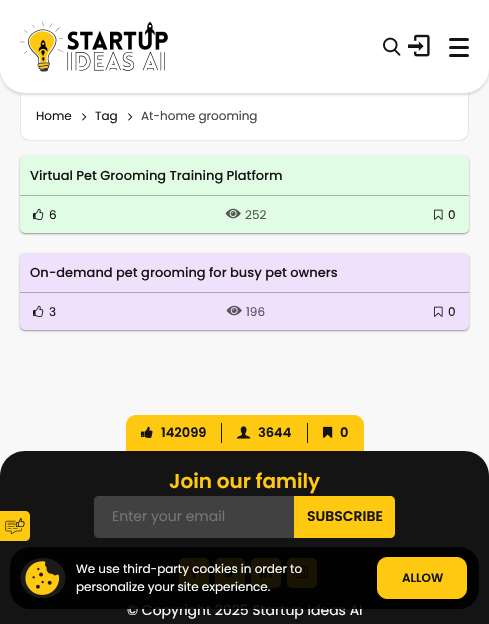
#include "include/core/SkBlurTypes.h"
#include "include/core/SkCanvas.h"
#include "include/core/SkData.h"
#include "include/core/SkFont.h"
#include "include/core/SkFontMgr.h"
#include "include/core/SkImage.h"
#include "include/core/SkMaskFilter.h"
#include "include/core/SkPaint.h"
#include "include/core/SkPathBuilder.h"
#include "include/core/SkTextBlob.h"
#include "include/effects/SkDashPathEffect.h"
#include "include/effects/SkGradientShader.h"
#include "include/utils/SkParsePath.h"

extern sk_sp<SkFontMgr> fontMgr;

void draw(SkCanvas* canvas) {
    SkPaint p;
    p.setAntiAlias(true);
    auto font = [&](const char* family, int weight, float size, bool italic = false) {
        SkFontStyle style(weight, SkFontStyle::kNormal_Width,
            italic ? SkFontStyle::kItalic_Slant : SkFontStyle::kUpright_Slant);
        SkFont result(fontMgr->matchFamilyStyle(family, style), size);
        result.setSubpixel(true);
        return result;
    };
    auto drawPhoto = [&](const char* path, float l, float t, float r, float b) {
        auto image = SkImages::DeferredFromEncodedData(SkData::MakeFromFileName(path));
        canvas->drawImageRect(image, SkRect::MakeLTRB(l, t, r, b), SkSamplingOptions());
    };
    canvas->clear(0xFFF8F8F8);
    p.setColor(0xFFFFFFFF);
    canvas->drawPath(SkPathBuilder().moveTo(20, 92).lineTo(469, 92).lineTo(469, 131).cubicTo(469, 136.5f, 464.5f, 141, 459, 141).lineTo(30, 141).cubicTo(24.5f, 141, 20, 136.5f, 20, 131).close().detach(), p);
    p.setColor(0x1A151415);
    canvas->drawPath(SkPathBuilder(SkPathFillType::kEvenOdd).moveTo(20, 92).lineTo(469, 92).lineTo(469, 131).cubicTo(469, 137, 465, 141, 459, 141).lineTo(30, 141).cubicTo(24, 141, 20, 137, 20, 131).close().moveTo(21, 92).lineTo(468, 92).lineTo(468, 131).cubicTo(468, 136, 464, 140, 459, 140).lineTo(30, 140).cubicTo(25, 140, 21, 136, 21, 131).close().detach(), p);
    p.setColor(0x29151415);
    p.setMaskFilter(SkMaskFilter::MakeBlur(kNormal_SkBlurStyle, 1.5f));
    canvas->drawRoundRect(SkRect::MakeLTRB(0, 2, 489, 95), 25, 25, p);
    p.setMaskFilter(nullptr);
    p.setColor(0xFFFFFFFF);
    canvas->drawPath(SkPathBuilder().moveTo(0, 0).lineTo(489, 0).lineTo(489, 68).cubicTo(489, 82, 478, 93, 464, 93).lineTo(25, 93).cubicTo(11, 93, 0, 82, 0, 68).close().detach(), p);
    drawPhoto("media/1.png", 19, 21, 168, 72);
    drawPhoto("media/2.png", 383, 37, 401, 56);
    drawPhoto("media/3.png", 408, 34, 430, 57);
    p.setColor(0xFF151415);
    canvas->drawRoundRect(SkRect::MakeLTRB(449, 46, 469, 49), 1.5f, 1.5f, p);
    canvas->drawRoundRect(SkRect::MakeLTRB(449, 38, 469, 41), 1.5f, 1.5f, p);
    canvas->drawRoundRect(SkRect::MakeLTRB(449, 54, 469, 57), 1.5f, 1.5f, p);
    auto font1 = font("Poppins", 400, 12);
    canvas->drawString("Home", 36, 120, font1, p);
    drawPhoto("media/4.png", 82, 113, 87, 121);
    canvas->drawString("Tag", 95, 120, font1, p);
    drawPhoto("media/4.png", 128, 113, 133, 121);
    p.setColor(0xFF444344);
    canvas->drawString("At-home grooming", 141, 120, font1, p);
    p.setColor(0x66000000);
    p.setMaskFilter(SkMaskFilter::MakeBlur(kNormal_SkBlurStyle, 1));
    canvas->drawRoundRect(SkRect::MakeLTRB(20, 157, 469, 234), 5, 5, p);
    p.setMaskFilter(nullptr);
    p.setColor(0xFFE1FCE4);
    canvas->drawRoundRect(SkRect::MakeLTRB(20, 156, 469, 233), 5, 5, p);
    auto font2 = font("Poppins", 500, 13);
    p.setColor(0xFF151415);
    canvas->drawString("Virtual Pet Grooming Training Platform", 30, 180, font2, p);
    p.setColor(0xFFA4B6A6);
    canvas->drawRect(SkRect::MakeLTRB(20, 195, 469, 196), p);
    drawPhoto("media/5.png", 33, 208, 44, 220);
    p.setColor(0xFF151415);
    canvas->drawString("6", 49, 219, font1, p);
    drawPhoto("media/6.png", 225, 208, 241, 219);
    p.setColor(0xFF525A53);
    canvas->drawString("252", 245, 219, font1, p);
    drawPhoto("media/7.png", 434, 209, 443, 220);
    p.setColor(0xFF151415);
    canvas->drawString("0", 448, 219, font1, p);
    p.setColor(0x66000000);
    p.setMaskFilter(SkMaskFilter::MakeBlur(kNormal_SkBlurStyle, 1));
    canvas->drawRoundRect(SkRect::MakeLTRB(20, 254, 469, 331), 5, 5, p);
    p.setMaskFilter(nullptr);
    p.setColor(0xFFEFE1FC);
    canvas->drawRoundRect(SkRect::MakeLTRB(20, 253, 469, 330), 5, 5, p);
    p.setColor(0xFF151415);
    canvas->drawString("On-demand pet grooming for busy pet owners", 30, 277, font2, p);
    p.setColor(0xFFAEA4B7);
    canvas->drawRect(SkRect::MakeLTRB(20, 292, 469, 293), p);
    drawPhoto("media/8.png", 33, 305, 44, 317);
    p.setColor(0xFF151415);
    canvas->drawString("3", 49, 316, font1, p);
    drawPhoto("media/9.png", 226, 305, 242, 316);
    p.setColor(0xFF56525A);
    canvas->drawString("196", 246, 316, font1, p);
    drawPhoto("media/10.png", 434, 306, 443, 317);
    p.setColor(0xFF151415);
    canvas->drawString("0", 448, 316, font1, p);
    p.setColor(0xFFFEC910);
    canvas->drawPath(SkPathBuilder().moveTo(136, 415).lineTo(354, 415).cubicTo(359.5f, 415, 364, 419.5f, 364, 425).lineTo(364, 451).lineTo(126, 451).lineTo(126, 425).cubicTo(126, 419.5f, 130.5f, 415, 136, 415).close().detach(), p);
    p.setColor(0xFF151415);
    canvas->drawRect(SkRect::MakeLTRB(221, 423, 222, 443), p);
    drawPhoto("media/11.png", 140, 426, 153, 438);
    auto font3 = font("Poppins", 600, 13);
    canvas->drawString("142099", 161, 437, font3, p);
    canvas->drawRect(SkRect::MakeLTRB(307, 423, 308, 443), p);
    drawPhoto("media/12.png", 237, 426, 251, 439);
    canvas->drawString("3644", 258, 437, font3, p);
    drawPhoto("media/13.png", 322, 426, 333, 438);
    canvas->drawString("0", 340, 437, font3, p);
    canvas->drawPath(SkPathBuilder().moveTo(25, 451).lineTo(464, 451).cubicTo(478, 451, 489, 462, 489, 476).lineTo(489, 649).lineTo(0, 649).lineTo(0, 476).cubicTo(0, 462, 11, 451, 25, 451).close().detach(), p);
    p.setColor(0xFFFEC910);
    canvas->drawPath(SkPathBuilder().moveTo(0, 511).lineTo(25, 511).cubicTo(28, 511, 30, 513, 30, 516).lineTo(30, 536).cubicTo(30, 539, 28, 541, 25, 541).lineTo(0, 541).close().detach(), p);
    drawPhoto("media/14.png", 5, 518, 25, 534);
    auto font4 = font("Poppins", 600, 20);
    canvas->drawString("Join our family", 169, 488, font4, p);
    p.setColor(0xFF414142);
    canvas->drawPath(SkPathBuilder().moveTo(99, 496).lineTo(294, 496).lineTo(294, 538).lineTo(99, 538).cubicTo(96, 538, 94, 536, 94, 533).lineTo(94, 501).cubicTo(94, 498, 96, 496, 99, 496).close().detach(), p);
    auto font5 = font("Poppins", 400, 14);
    p.setColor(0xFF757575);
    canvas->drawString("Enter your email", 112, 521, font5, p);
    p.setColor(0xFFFEC910);
    canvas->drawPath(SkPathBuilder().moveTo(294, 496).lineTo(390, 496).cubicTo(393, 496, 395, 498, 395, 501).lineTo(395, 533).cubicTo(395, 536, 393, 538, 390, 538).lineTo(294, 538).close().detach(), p);
    auto font6 = font("Poppins", 600, 14);
    p.setColor(0xFF151415);
    canvas->drawString("SUBSCRIBE", 307, 521, font6, p);
    p.setColor(0xFFFEC910);
    canvas->drawRoundRect(SkRect::MakeLTRB(179, 558, 209, 588), 5, 5, p);
    drawPhoto("media/15.png", 190, 565, 198, 579);
    canvas->drawRoundRect(SkRect::MakeLTRB(215, 558, 245, 588), 5, 5, p);
    drawPhoto("media/16.png", 223, 567, 236, 578);
    canvas->drawRoundRect(SkRect::MakeLTRB(251, 558, 281, 588), 5, 5, p);
    drawPhoto("media/17.png", 260, 566, 272, 578);
    canvas->drawRoundRect(SkRect::MakeLTRB(287, 558, 317, 588), 5, 5, p);
    drawPhoto("media/18.png", 296, 566, 308, 579);
    p.setColor(0xFFFFFFFF);
    canvas->drawString("© Copyright 2025 Startup Ideas AI", 127, 615, font5, p);
    p.setColor(0xE6000000);
    canvas->drawRoundRect(SkRect::MakeLTRB(10, 547, 479, 609), 20, 20, p);
    p.setColor(0xFF1B1B1B);
    canvas->drawOval(SkRect::MakeLTRB(20.5f, 558, 65.5f, 598), p);
    drawPhoto("media/19.png", 25, 561, 59, 595);
    p.setColor(0xFFFFFFFF);
    canvas->drawString("We use third-party cookies in order to", 76, 573, font1, p);
    canvas->drawString("personalize your site experience.", 76, 591, font1, p);
    p.setColor(0xFFFEC910);
    canvas->drawRoundRect(SkRect::MakeLTRB(377.5f, 557.5f, 466.5f, 598.5f), 9.5f, 9.5f, p);
    p.setStyle(SkPaint::kStroke_Style);
    p.setStrokeWidth(1);
    canvas->drawRoundRect(SkRect::MakeLTRB(377.5f, 557.5f, 466.5f, 598.5f), 9.5f, 9.5f, p);
    auto font7 = font("Poppins", 600, 12);
    p.setStyle(SkPaint::kFill_Style);
    p.setColor(0xFF151415);
    canvas->drawString("ALLOW", 402, 582, font7, p);
}
